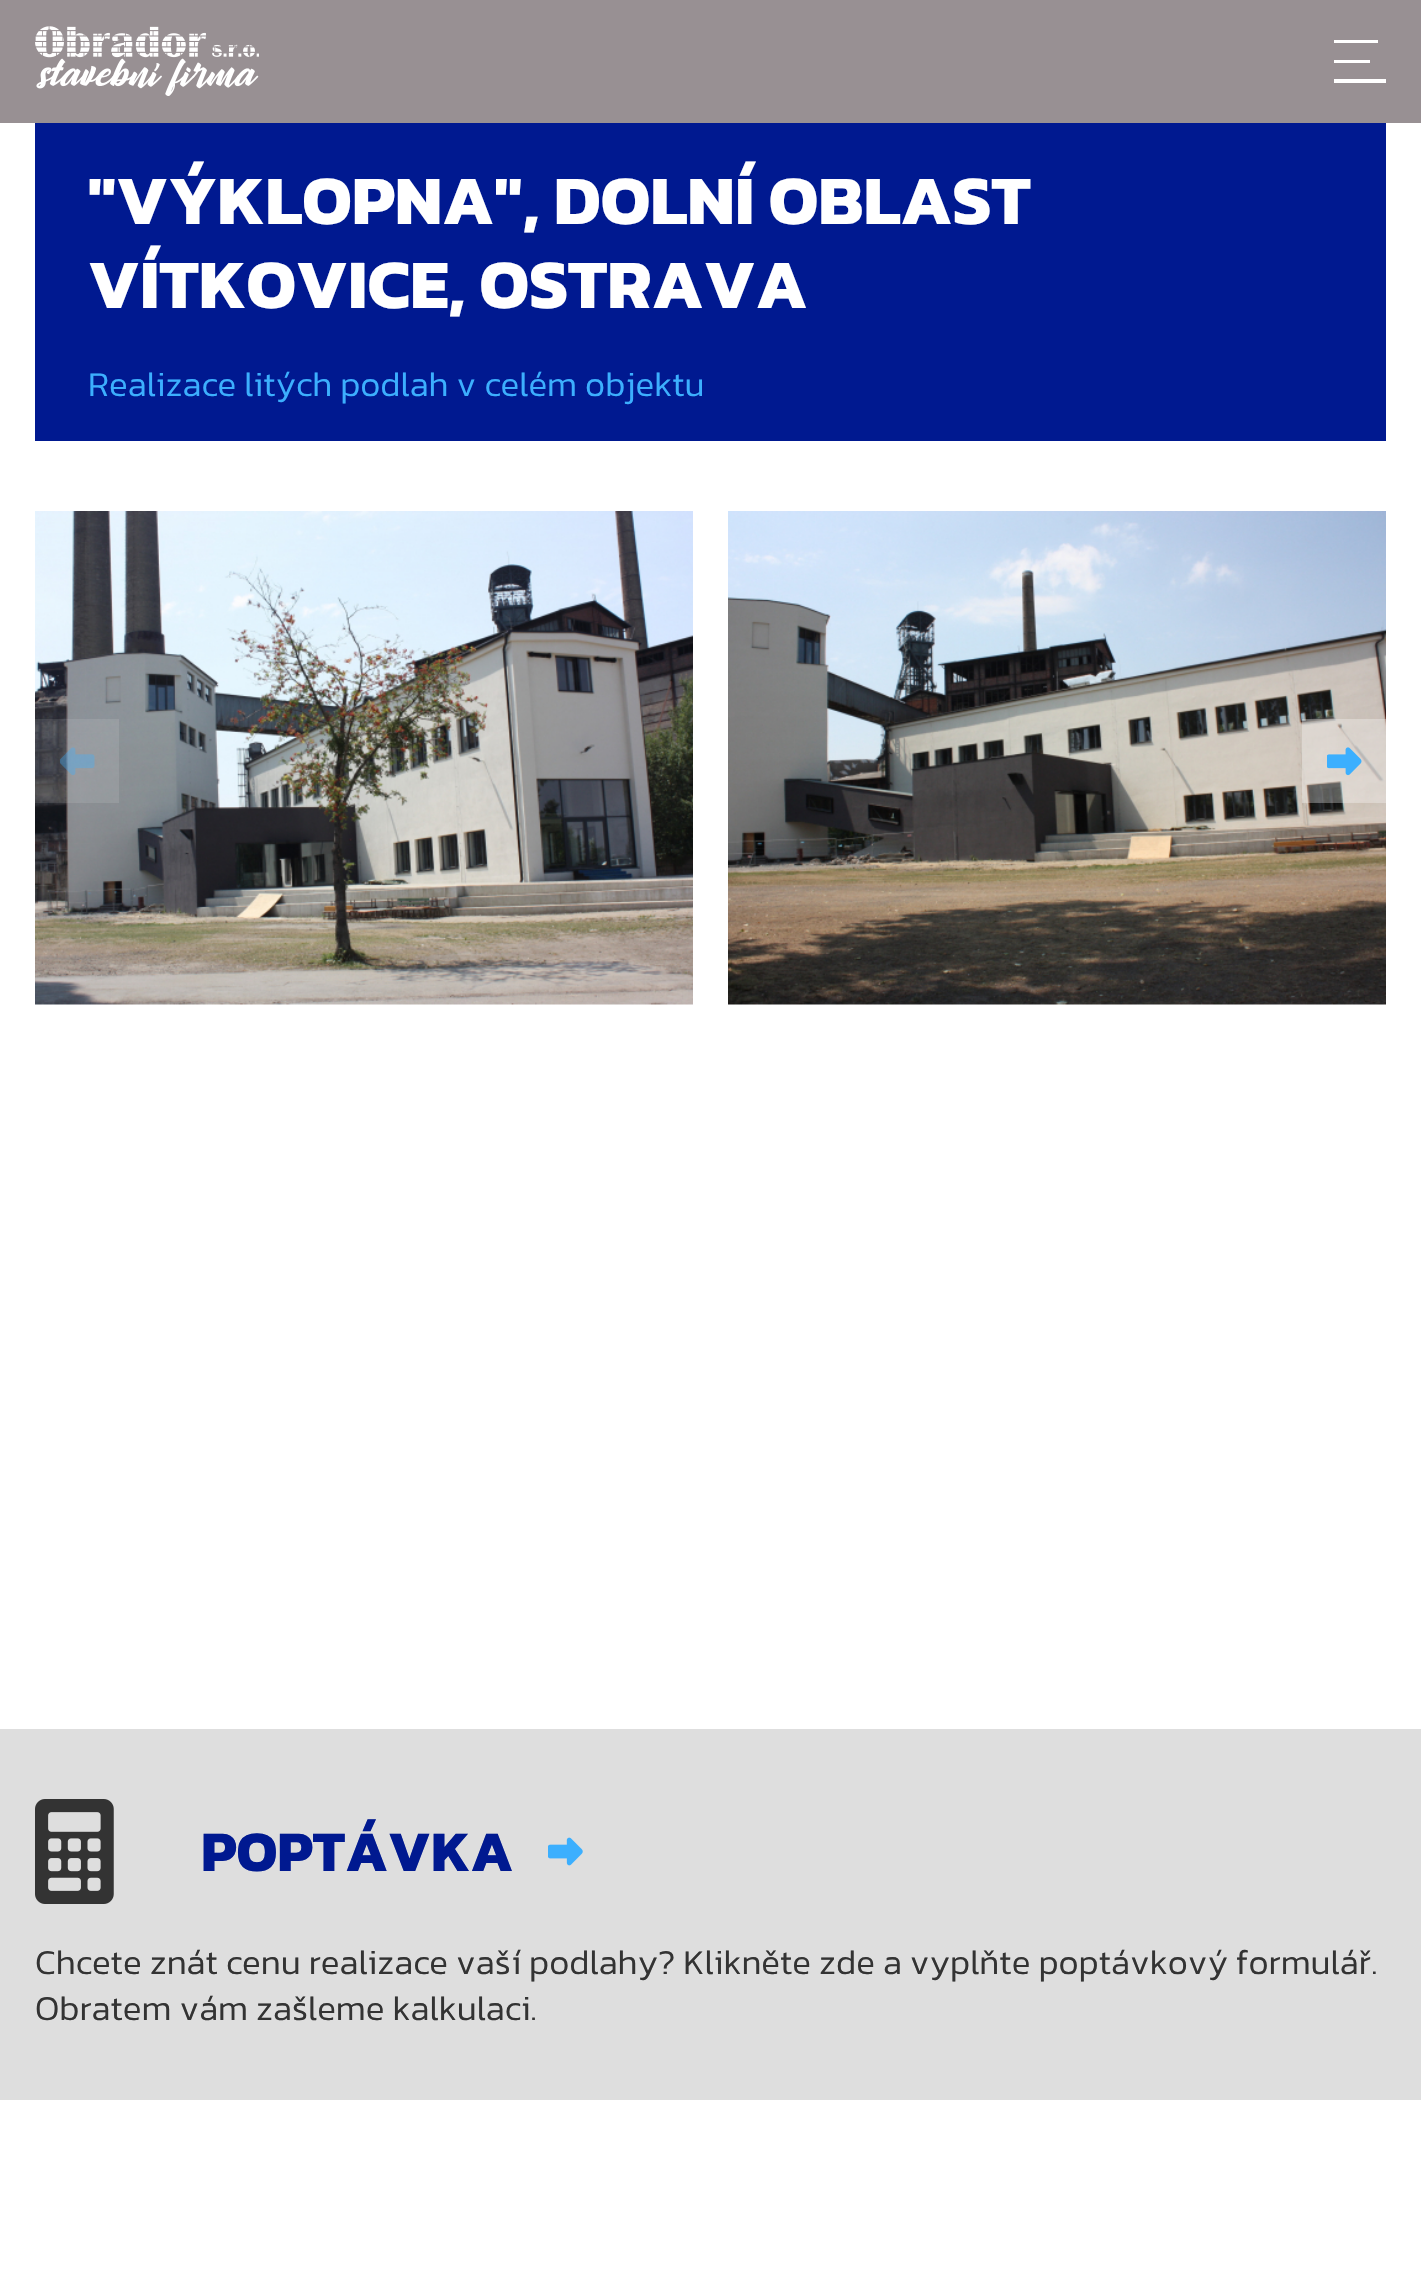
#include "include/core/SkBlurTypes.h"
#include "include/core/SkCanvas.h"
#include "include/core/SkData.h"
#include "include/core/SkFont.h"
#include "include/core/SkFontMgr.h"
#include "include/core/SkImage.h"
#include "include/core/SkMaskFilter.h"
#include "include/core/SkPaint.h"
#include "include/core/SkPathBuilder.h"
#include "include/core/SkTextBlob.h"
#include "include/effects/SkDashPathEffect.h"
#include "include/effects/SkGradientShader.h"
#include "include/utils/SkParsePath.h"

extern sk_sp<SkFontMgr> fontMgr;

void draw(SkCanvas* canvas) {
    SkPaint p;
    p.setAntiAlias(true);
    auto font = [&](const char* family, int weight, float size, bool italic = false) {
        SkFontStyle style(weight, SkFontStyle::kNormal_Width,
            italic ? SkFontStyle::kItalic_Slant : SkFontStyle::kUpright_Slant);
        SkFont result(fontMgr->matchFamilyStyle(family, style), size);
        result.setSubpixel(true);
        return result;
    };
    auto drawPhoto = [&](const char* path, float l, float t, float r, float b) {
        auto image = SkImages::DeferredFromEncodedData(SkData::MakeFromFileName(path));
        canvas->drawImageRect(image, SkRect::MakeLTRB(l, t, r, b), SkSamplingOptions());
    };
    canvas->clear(0xFFFFFFFF);
    p.setColor(0xFF989093);
    canvas->drawRect(SkRect::MakeLTRB(0, 0, 1421, 123), p);
    drawPhoto("media/1.png", 35, 26, 259, 96);
    {
        const struct { float l, t, r, b; SkColor color; } items[] = {
            {1334, 40, 1378, 43, 0xFFFFFFFF},
            {1334, 60, 1370, 63, 0xFFFFFFFF},
            {1334, 79, 1386, 83, 0xFFFFFFFF},
            {35, 123, 1386, 441, 0xFF001990},
        };
        for (auto [l, t, r, b, color] : items) {
            p.setColor(color);
            canvas->drawRect(SkRect::MakeLTRB(l, t, r, b), p);
        }
    }
    auto font1 = font("Kanit", 700, 70);
    p.setColor(0xFFFFFFFF);
    canvas->drawString("\"VÝKLOPNA\", DOLNÍ OBLAST", 88, 224, font1, p);
    canvas->drawString("VÍTKOVICE, OSTRAVA", 88, 308, font1, p);
    auto font2 = font("Kanit", 300, 35);
    p.setColor(0xFF3CAFFE);
    canvas->drawString("Realizace litých podlah v celém objektu", 88, 396, font2, p);
    drawPhoto("media/2.png", 35, 511, 693, 1005);
    drawPhoto("media/3.png", 728, 511, 1386, 1005);
    p.setColor(0x1AFFFFFF);
    canvas->drawRect(SkRect::MakeLTRB(35, 719, 119, 803), p);
    drawPhoto("media/4.png", 60, 747, 95, 775);
    p.setColor(0x4DFFFFFF);
    canvas->drawRect(SkRect::MakeLTRB(1302, 719, 1386, 803), p);
    drawPhoto("media/5.png", 1327, 747, 1362, 776);
    p.setColor(0xFFDEDEDE);
    canvas->drawRect(SkRect::MakeLTRB(0, 1729, 1421, 2100), p);
    drawPhoto("media/6.png", 35, 1799, 114, 1904);
    auto font3 = font("Kanit", 700, 57.75f);
    p.setColor(0xFF001990);
    canvas->drawString("POPTÁVKA", 201, 1871, font3, p);
    drawPhoto("media/7.png", 548, 1837, 583, 1866);
    p.setColor(0xFF333333);
    canvas->drawString("Chcete znát cenu realizace vaší podlahy? Klikněte zde a vyplňte poptávkový formulář.", 35, 1974, font2, p);
    canvas->drawString("Obratem vám zašleme kalkulaci.", 35, 2020, font2, p);
}
